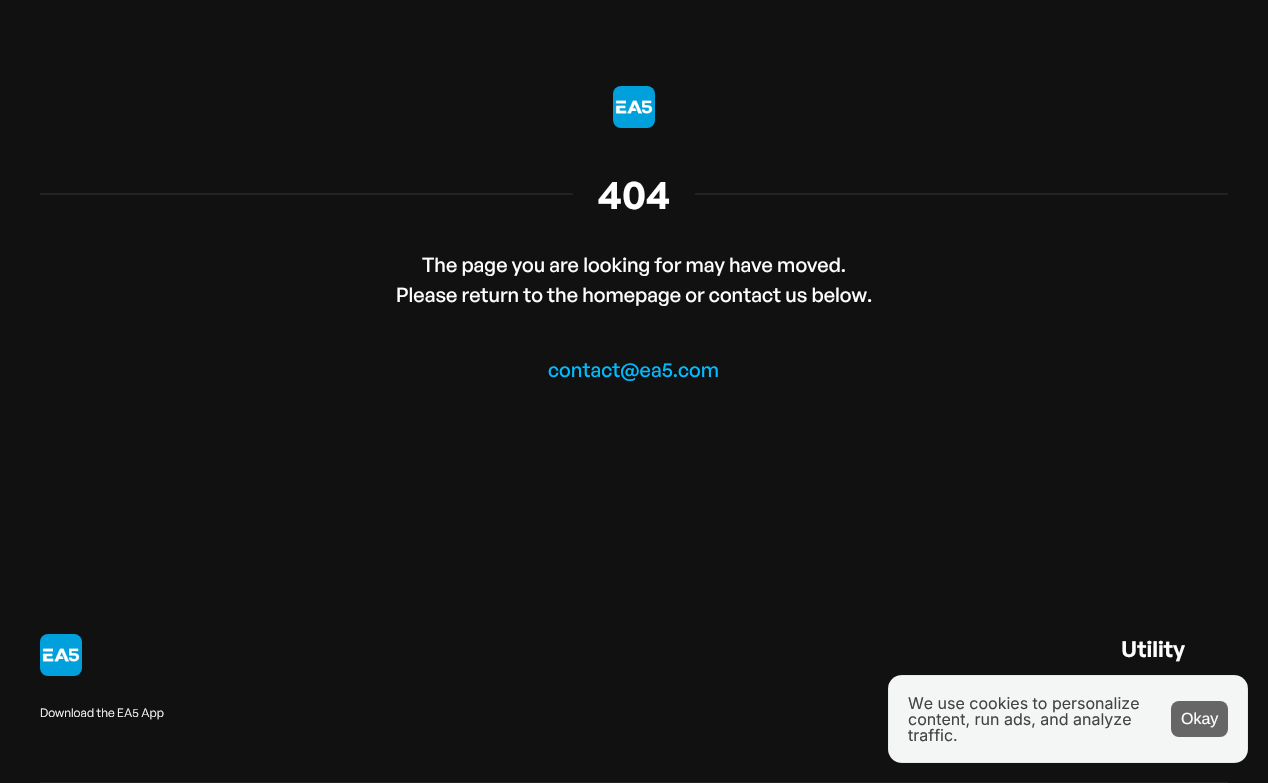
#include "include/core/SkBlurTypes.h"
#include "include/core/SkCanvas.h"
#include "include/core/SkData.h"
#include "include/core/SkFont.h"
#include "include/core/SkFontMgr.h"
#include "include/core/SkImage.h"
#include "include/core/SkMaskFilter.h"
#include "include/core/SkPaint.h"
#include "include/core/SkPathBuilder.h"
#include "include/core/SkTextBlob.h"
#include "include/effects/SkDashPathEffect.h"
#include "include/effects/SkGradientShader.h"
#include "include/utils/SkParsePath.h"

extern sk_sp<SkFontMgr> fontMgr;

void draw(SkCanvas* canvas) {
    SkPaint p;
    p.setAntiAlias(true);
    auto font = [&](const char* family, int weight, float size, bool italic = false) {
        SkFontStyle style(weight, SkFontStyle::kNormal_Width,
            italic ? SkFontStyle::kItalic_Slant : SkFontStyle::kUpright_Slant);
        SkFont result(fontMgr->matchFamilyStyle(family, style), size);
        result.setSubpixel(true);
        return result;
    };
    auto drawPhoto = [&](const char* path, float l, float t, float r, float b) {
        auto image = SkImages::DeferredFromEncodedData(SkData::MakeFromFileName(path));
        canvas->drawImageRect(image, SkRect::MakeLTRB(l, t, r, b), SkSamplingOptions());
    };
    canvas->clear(0xFF111111);
    drawPhoto("media/1.png", 613, 86, 655, 128);
    p.setColor(0xFF232220);
    canvas->drawRect(SkRect::MakeLTRB(40, 193, 573, 195), p);
    auto font1 = font("General Sans", 600, 40);
    p.setColor(0xFFFFFFFF);
    canvas->drawString("404", 598, 209, font1, p);
    p.setColor(0xFF232220);
    canvas->drawRect(SkRect::MakeLTRB(695, 193, 1228, 195), p);
    auto font2 = font("General Sans", 500, 20);
    p.setColor(0xFFFFFFFF);
    canvas->drawString("The page you are looking for may have moved.", 422, 272, font2, p);
    canvas->drawString("Please return to the homepage or contact us below.", 396, 302, font2, p);
    p.setColor(0xFF00BBFF);
    canvas->drawString("contact@ea5.com", 548, 377, font2, p);
    auto font3 = font("General Sans", 600, 22);
    p.setColor(0xFFFFFFFF);
    canvas->drawString("Utility", 1121, 657, font3, p);
    drawPhoto("media/2.png", 40, 634, 82, 676);
    auto font4 = font("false", 400, 12);
    canvas->drawString("Download the EA5 App", 40, 717, font4, p);
    p.setColor(0xFF232220);
    canvas->drawRect(SkRect::MakeLTRB(40, 782, 1228, 783), p);
    p.setColor(0xFFF4F5F5);
    canvas->drawRoundRect(SkRect::MakeLTRB(888, 675, 1248, 763), 14, 14, p);
    p.setStyle(SkPaint::kStroke_Style);
    p.setStrokeWidth(1);
    p.setColor(0x0D000000);
    canvas->drawRect(SkRect::MakeLTRB(888.5f, 675.5f, 1247.5f, 762.5f), p);
    auto font5 = font("Inter", 400, 16);
    p.setStyle(SkPaint::kFill_Style);
    p.setColor(0xFF444444);
    {
        const struct { const char* s; float x, y; } items[] = {
            {"We use cookies to personalize", 908, 709},
            {"content, run ads, and analyze", 908, 725},
            {"traffic.", 908, 741},
        };
        for (auto [s, x, y] : items) {
            canvas->drawString(s, x, y, font5, p);
        }
    }
    p.setColor(0xFF666666);
    canvas->drawRoundRect(SkRect::MakeLTRB(1171, 701, 1228, 737), 8, 8, p);
    auto font6 = font("Liberation Sans", 400, 16);
    p.setColor(0xFFFFFFFF);
    canvas->drawString("Okay", 1181, 724, font6, p);
}
